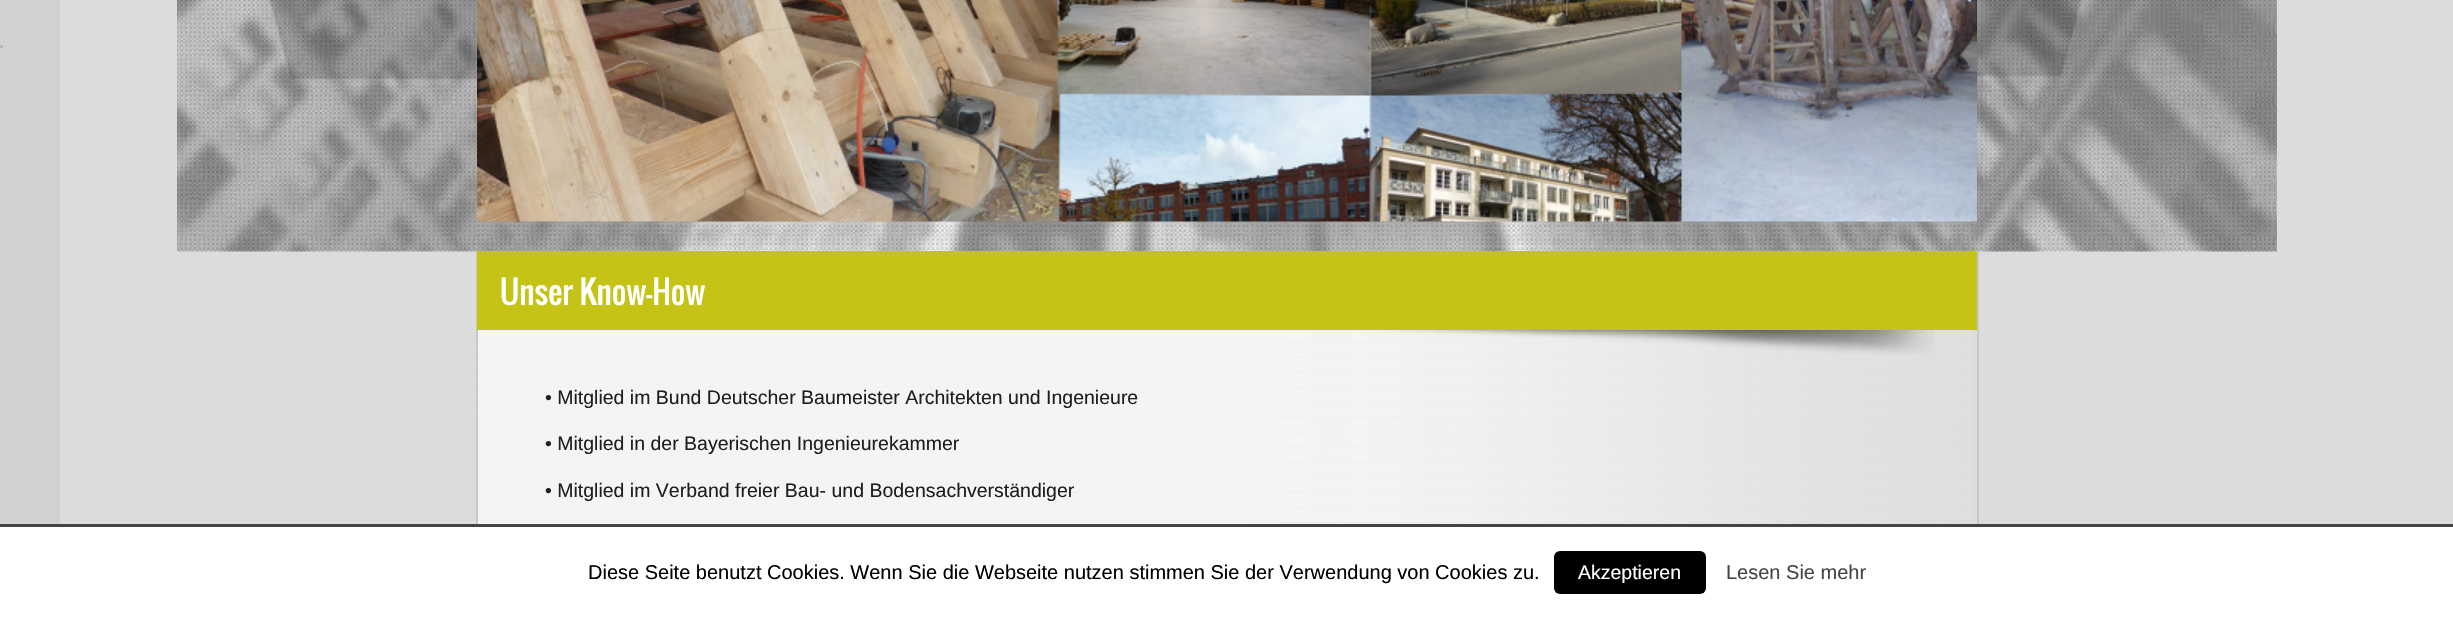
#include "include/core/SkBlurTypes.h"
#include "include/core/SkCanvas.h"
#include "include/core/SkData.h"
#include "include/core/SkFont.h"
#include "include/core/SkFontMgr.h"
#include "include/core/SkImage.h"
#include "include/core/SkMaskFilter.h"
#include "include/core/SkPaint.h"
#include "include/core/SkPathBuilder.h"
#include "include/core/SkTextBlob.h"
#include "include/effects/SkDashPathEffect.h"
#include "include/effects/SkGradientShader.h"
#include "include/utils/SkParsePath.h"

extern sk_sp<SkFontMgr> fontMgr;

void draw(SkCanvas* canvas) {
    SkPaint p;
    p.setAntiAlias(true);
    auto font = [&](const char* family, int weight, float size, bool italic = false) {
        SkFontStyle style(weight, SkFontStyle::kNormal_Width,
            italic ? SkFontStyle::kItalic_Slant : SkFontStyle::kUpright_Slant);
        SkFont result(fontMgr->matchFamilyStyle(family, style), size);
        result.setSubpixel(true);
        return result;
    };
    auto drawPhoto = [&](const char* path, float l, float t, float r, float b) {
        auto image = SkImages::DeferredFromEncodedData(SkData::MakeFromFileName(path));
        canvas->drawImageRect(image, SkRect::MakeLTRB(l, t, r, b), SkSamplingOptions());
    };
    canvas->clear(0xFFDCDCDC);
    p.setColor(0xFFD1D1D1);
    canvas->drawRect(SkRect::MakeLTRB(0, 0, 60, 524), p);
    drawPhoto("media/1.png", 177, 0, 2277, 252);
    p.setColor(0xFFB2B2B2);
    canvas->drawCircle(1.5f, 46.5f, 1.5f, p);
    drawPhoto("media/2.png", 477, 0, 1977, 222);
    drawPhoto("media/3.png", 478, 330, 1972, 524);
    p.setColor(0xFFC8C8C8);
    canvas->drawRect(SkRect::MakeLTRB(1977, 252, 1979, 524), p);
    canvas->drawRect(SkRect::MakeLTRB(476, 252, 478, 524), p);
    drawPhoto("media/4.png", 1379, 330, 1934, 355);
    p.setColor(0xFFC4C316);
    canvas->drawRect(SkRect::MakeLTRB(477, 251, 1977, 330), p);
    auto font1 = font("Oswald", 400, 31.5f);
    p.setColor(0xFFFFFFFF);
    canvas->drawString("Unser Know-How", 500, 305, font1, p);
    auto font2 = font("Liberation Sans", 400, 19.5f);
    p.setColor(0xFF1E1E1E);
    {
        const struct { const char* s; float x, y; } items[] = {
            {"• Mitglied im Bund Deutscher Baumeister Architekten und Ingenieure", 545, 404},
            {"• Mitglied in der Bayerischen Ingenieurekammer", 545, 450},
            {"• Mitglied im Verband freier Bau- und Bodensachverständiger", 545, 497},
        };
        for (auto [s, x, y] : items) {
            canvas->drawString(s, x, y, font2, p);
        }
    }
    p.setColor(0xFFFFFFFF);
    canvas->drawRect(SkRect::MakeLTRB(0, 527, 2453, 618), p);
    p.setColor(0xFF444444);
    canvas->drawRect(SkRect::MakeLTRB(0, 524, 2453, 527), p);
    auto font3 = font("Liberation Sans", 400, 20);
    p.setColor(0xFF000000);
    canvas->drawString("Diese Seite benutzt Cookies. Wenn Sie die Webseite nutzen stimmen Sie der Verwendung von Cookies zu.", 588, 579, font3, p);
    canvas->drawRoundRect(SkRect::MakeLTRB(1554, 551, 1706, 594), 6, 6, p);
    p.setColor(0xFFFFFFFF);
    canvas->drawString("Akzeptieren", 1578, 579, font2, p);
    p.setColor(0xFF444444);
    canvas->drawString("Lesen Sie mehr", 1726, 579, font3, p);
}
